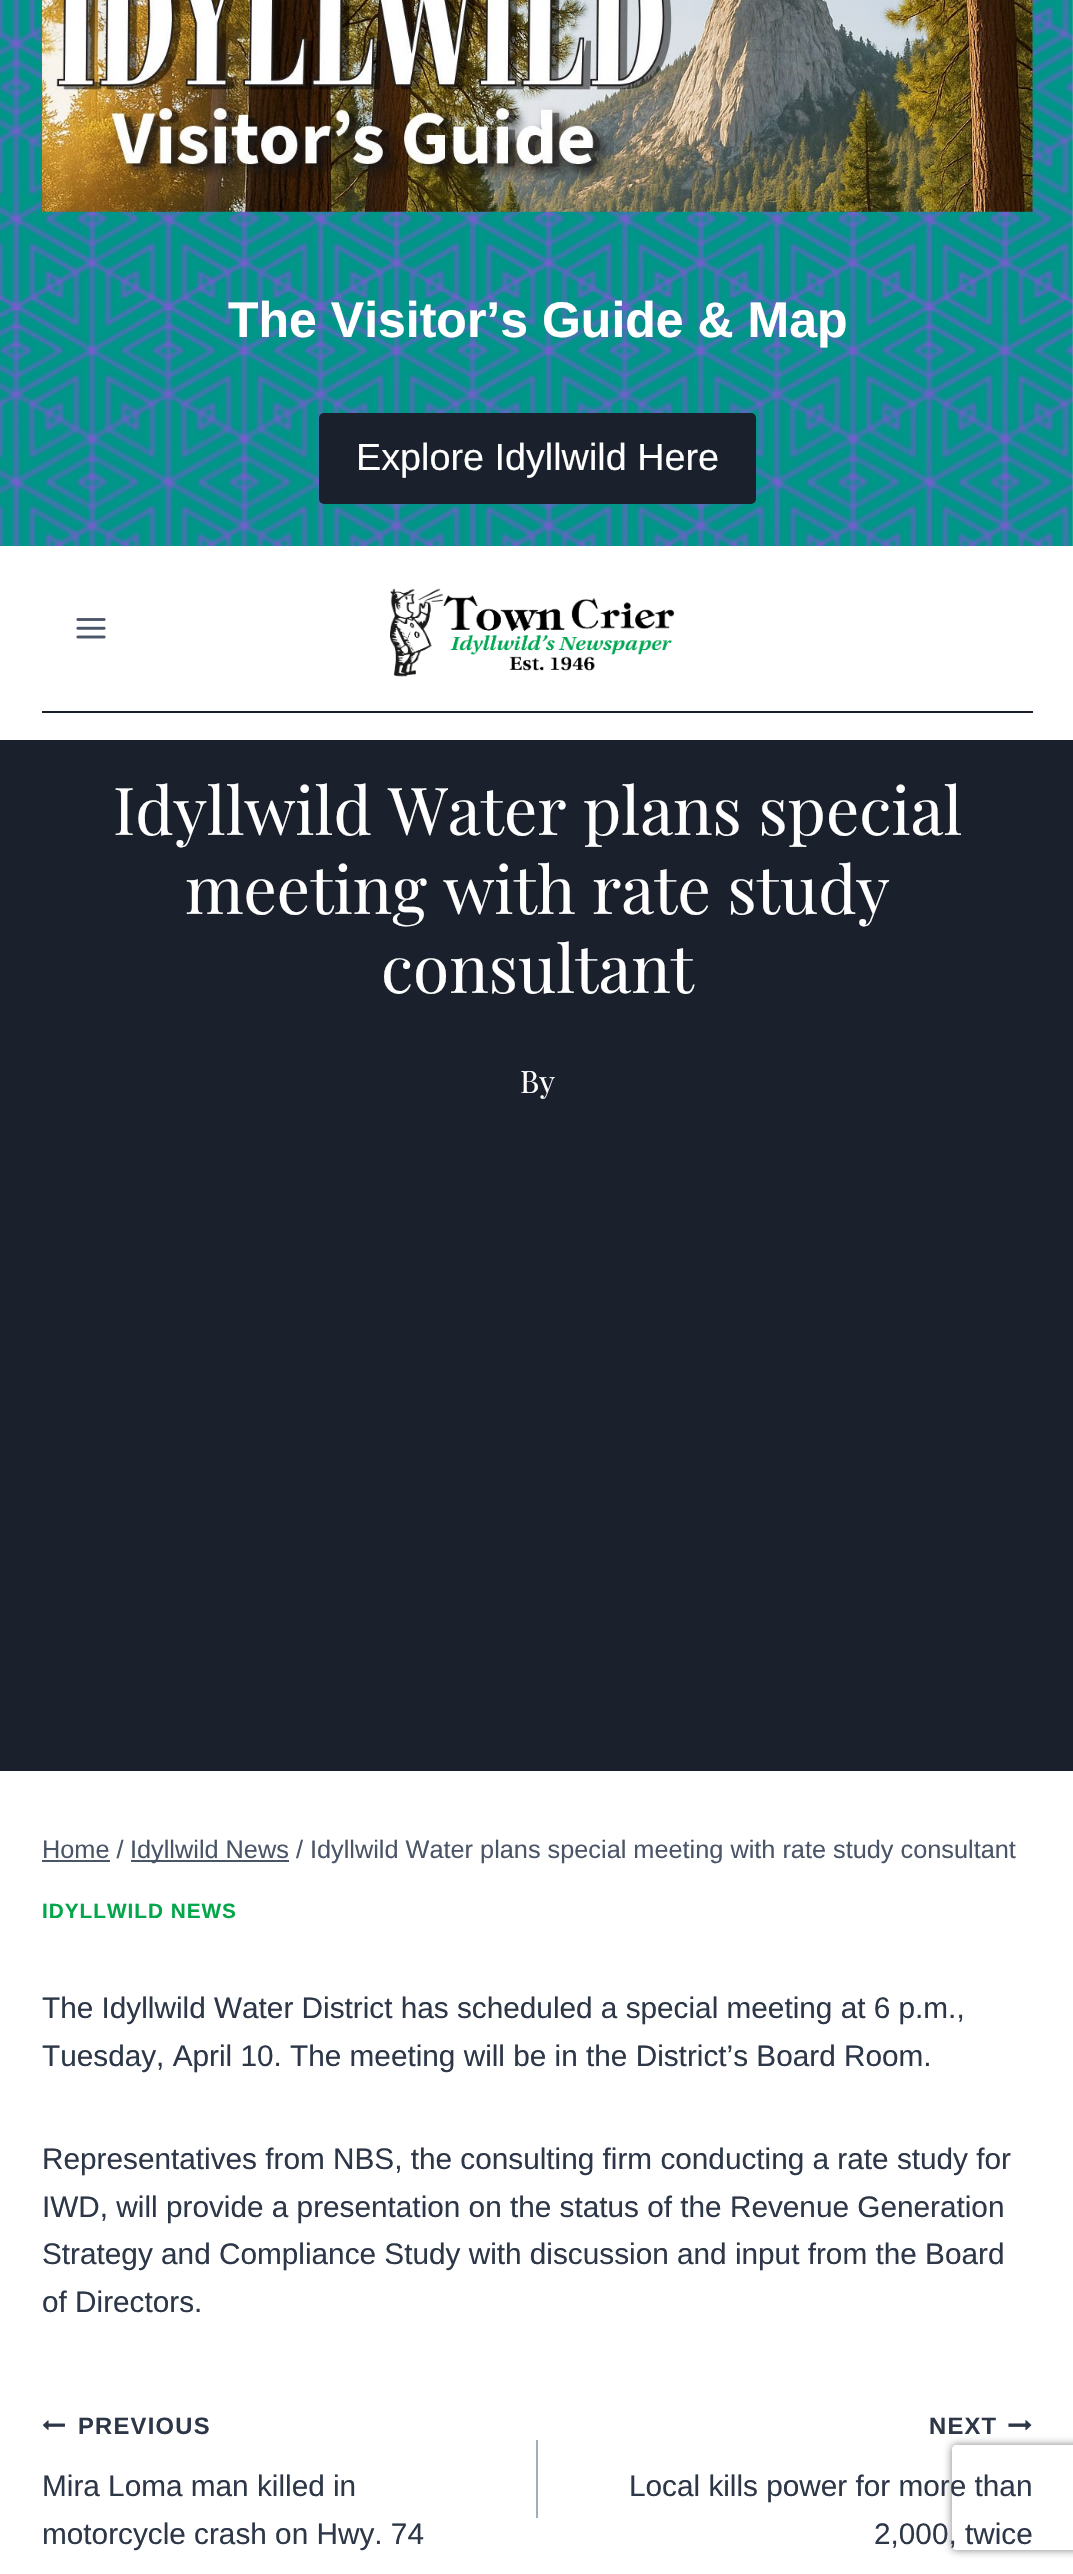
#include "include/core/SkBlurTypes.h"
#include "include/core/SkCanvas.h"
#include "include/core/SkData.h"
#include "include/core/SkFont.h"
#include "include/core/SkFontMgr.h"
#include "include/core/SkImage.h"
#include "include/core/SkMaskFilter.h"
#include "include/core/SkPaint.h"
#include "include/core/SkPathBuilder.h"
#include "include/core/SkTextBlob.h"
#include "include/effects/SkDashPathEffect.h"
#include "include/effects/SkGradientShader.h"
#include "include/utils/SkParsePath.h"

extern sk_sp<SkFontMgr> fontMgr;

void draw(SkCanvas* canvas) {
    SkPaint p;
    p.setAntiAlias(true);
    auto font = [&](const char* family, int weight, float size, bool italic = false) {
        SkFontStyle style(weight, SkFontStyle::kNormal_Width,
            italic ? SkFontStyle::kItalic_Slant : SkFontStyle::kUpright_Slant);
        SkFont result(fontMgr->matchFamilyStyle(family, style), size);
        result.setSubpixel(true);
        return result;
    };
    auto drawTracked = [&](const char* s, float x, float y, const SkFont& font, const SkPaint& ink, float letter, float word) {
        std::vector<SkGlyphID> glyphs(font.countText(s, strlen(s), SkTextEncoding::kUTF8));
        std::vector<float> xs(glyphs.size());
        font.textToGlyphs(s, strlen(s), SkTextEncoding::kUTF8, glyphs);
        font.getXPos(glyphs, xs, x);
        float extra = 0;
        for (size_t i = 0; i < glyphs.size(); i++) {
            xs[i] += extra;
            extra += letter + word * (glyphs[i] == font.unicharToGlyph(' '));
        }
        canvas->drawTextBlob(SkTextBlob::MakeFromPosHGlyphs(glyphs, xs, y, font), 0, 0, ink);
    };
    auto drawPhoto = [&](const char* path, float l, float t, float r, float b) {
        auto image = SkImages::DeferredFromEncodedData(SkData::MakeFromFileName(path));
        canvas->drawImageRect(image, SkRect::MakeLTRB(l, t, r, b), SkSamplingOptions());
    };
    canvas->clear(0xFFFFFFFF);
    drawPhoto("media/1.png", 0, 0, 1073, 546);
    drawPhoto("media/2.png", 42, 0, 1033, 212);
    auto font1 = font("Liberation Sans", 700, 50);
    p.setColor(0xFFFFFFFF);
    canvas->drawString("The Visitor’s Guide & Map", 228, 337, font1, p);
    p.setColor(0xFF1A202C);
    canvas->drawRoundRect(SkRect::MakeLTRB(319, 413, 756, 504), 5, 5, p);
    auto font2 = font("Liberation Sans", 400, 37.75f);
    p.setColor(0xFFFFFFFF);
    canvas->drawString("Explore Idyllwild Here", 356, 470, font2, p);
    p.setColor(0xFF1A202C);
    canvas->drawRect(SkRect::MakeLTRB(42, 711, 1033, 713), p);
    drawPhoto("media/3.png", 76, 618, 106, 639);
    drawPhoto("media/4.png", 390, 588, 675, 677);
    canvas->drawRect(SkRect::MakeLTRB(0, 740, 1073, 1771), p);
    auto font3 = font("Playfair Display", 400, 65.9f);
    p.setColor(0xFFFFFFFF);
    {
        const struct { const char* s; float x, y; } items[] = {
            {"Idyllwild Water plans special", 113, 835},
            {"meeting with rate study", 185, 914},
            {"consultant", 381, 993},
        };
        for (auto [s, x, y] : items) {
            canvas->drawString(s, x, y, font3, p);
        }
    }
    auto font4 = font("Playfair Display", 400, 31);
    canvas->drawString("By", 520, 1093, font4, p);
    auto font5 = font("Liberation Sans", 400, 25.3f);
    p.setColor(0xFF4A5568);
    canvas->drawString("Home /", 42, 1858, font5, p);
    canvas->drawRect(SkRect::MakeLTRB(42, 1860, 110, 1862), p);
    canvas->drawRect(SkRect::MakeLTRB(131, 1860, 289, 1862), p);
    canvas->drawString("Idyllwild News / Idyllwild Water plans special meeting with rate study consultant", 130, 1858, font5, p);
    auto font6 = font("Liberation Sans", 700, 20.75f);
    p.setColor(0xFF03A64A);
    drawTracked("IDYLLWILD NEWS", 42, 1918, font6, p, 1, 0);
    auto font7 = font("Liberation Sans", 400, 29.75f);
    p.setColor(0xFF2D3748);
    {
        const struct { const char* s; float x, y; } items[] = {
            {"The Idyllwild Water District has scheduled a special meeting at 6 p.m.,", 42, 2018},
            {"Tuesday, April 10. The meeting will be in the District’s Board Room.", 42, 2066},
            {"Representatives from NBS, the consulting firm conducting a rate study for", 42, 2169},
            {"IWD, will provide a presentation on the status of the Revenue Generation", 42, 2217},
            {"Strategy and Compliance Study with discussion and input from the Board", 42, 2264},
            {"of Directors.", 42, 2312},
        };
        for (auto [s, x, y] : items) {
            canvas->drawString(s, x, y, font7, p);
        }
    }
    drawPhoto("media/5.png", 42, 2420, 65, 2430);
    auto font8 = font("Liberation Sans", 700, 23.75f);
    drawTracked("PREVIOUS", 78, 2434, font8, p, 1.25f, 0);
    canvas->drawString("Mira Loma man killed in", 42, 2496, font7, p);
    canvas->drawString("motorcycle crash on Hwy. 74", 42, 2544, font7, p);
    p.setColor(0xFFA0AEC0);
    canvas->drawRect(SkRect::MakeLTRB(536, 2440, 538, 2518), p);
    p.setColor(0xFF2D3748);
    drawTracked("NEXT", 929, 2434, font8, p, 1.25f, 0);
    drawPhoto("media/6.png", 1008, 2420, 1032, 2431);
    canvas->drawString("Local kills power for more than", 629, 2496, font7, p);
    canvas->drawString("2,000, twice", 874, 2544, font7, p);
    canvas->save();
    canvas->clipPath(SkPathBuilder(SkPathFillType::kEvenOdd).moveTo(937, 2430).lineTo(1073, 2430).lineTo(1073, 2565).lineTo(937, 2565).close().moveTo(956, 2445).lineTo(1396, 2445).cubicTo(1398, 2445, 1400, 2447, 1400, 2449).lineTo(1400, 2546).cubicTo(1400, 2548, 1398, 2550, 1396, 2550).lineTo(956, 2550).cubicTo(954, 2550, 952, 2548, 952, 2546).lineTo(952, 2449).cubicTo(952, 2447, 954, 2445, 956, 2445).close().detach(), true);
    p.setColor(0xFF808080);
    p.setMaskFilter(SkMaskFilter::MakeBlur(kNormal_SkBlurStyle, 4.5f));
    canvas->drawRoundRect(SkRect::MakeLTRB(952, 2445, 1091, 2550), 4, 4, p);
    p.setMaskFilter(nullptr);
    canvas->restore();
}
